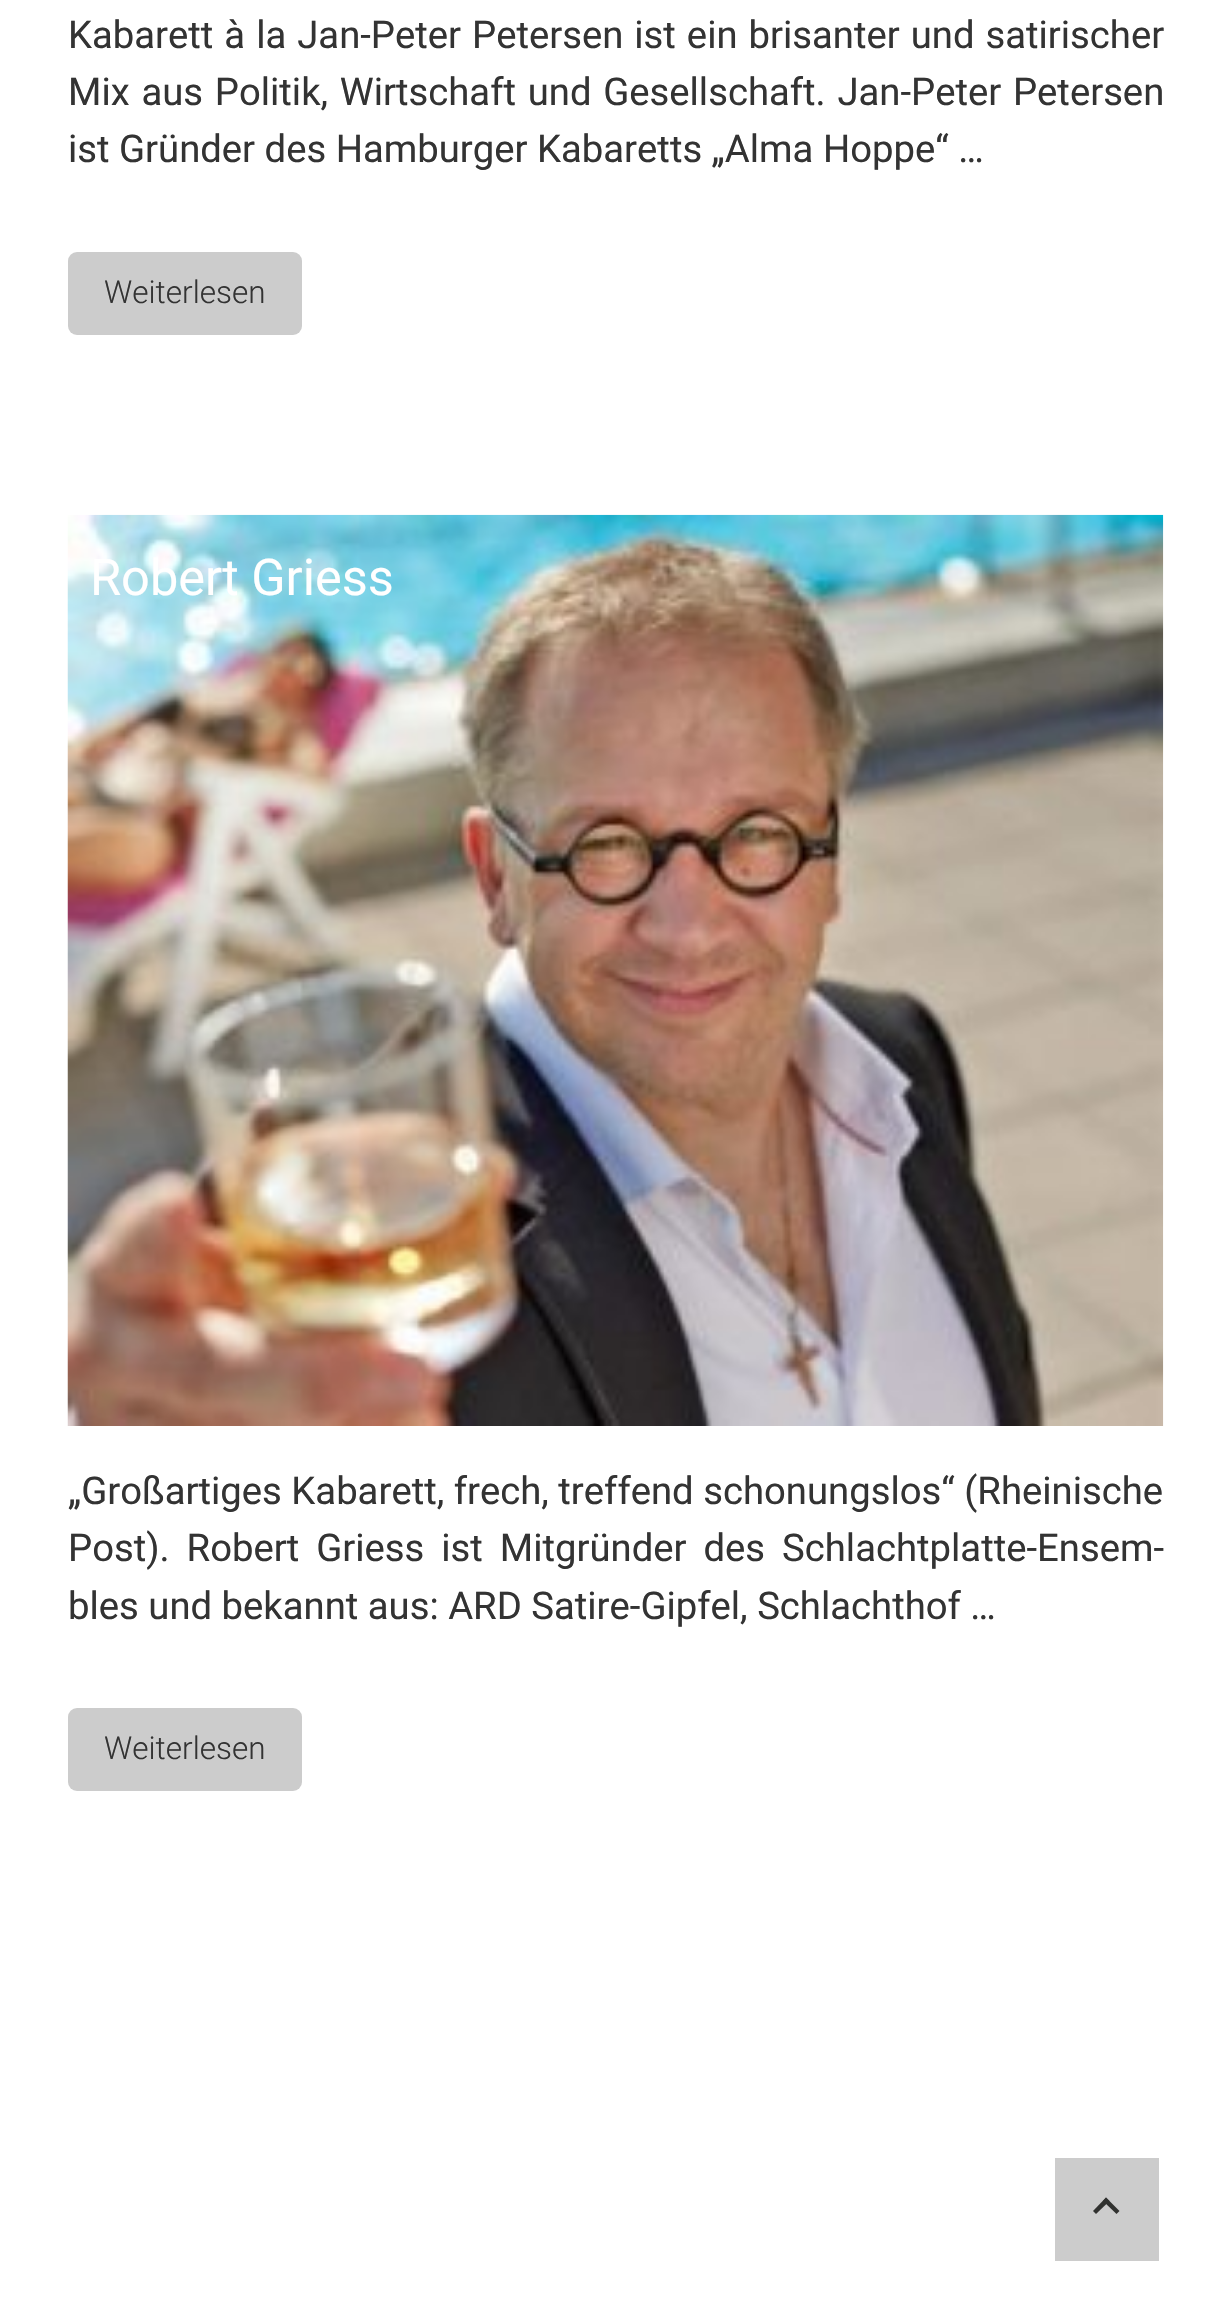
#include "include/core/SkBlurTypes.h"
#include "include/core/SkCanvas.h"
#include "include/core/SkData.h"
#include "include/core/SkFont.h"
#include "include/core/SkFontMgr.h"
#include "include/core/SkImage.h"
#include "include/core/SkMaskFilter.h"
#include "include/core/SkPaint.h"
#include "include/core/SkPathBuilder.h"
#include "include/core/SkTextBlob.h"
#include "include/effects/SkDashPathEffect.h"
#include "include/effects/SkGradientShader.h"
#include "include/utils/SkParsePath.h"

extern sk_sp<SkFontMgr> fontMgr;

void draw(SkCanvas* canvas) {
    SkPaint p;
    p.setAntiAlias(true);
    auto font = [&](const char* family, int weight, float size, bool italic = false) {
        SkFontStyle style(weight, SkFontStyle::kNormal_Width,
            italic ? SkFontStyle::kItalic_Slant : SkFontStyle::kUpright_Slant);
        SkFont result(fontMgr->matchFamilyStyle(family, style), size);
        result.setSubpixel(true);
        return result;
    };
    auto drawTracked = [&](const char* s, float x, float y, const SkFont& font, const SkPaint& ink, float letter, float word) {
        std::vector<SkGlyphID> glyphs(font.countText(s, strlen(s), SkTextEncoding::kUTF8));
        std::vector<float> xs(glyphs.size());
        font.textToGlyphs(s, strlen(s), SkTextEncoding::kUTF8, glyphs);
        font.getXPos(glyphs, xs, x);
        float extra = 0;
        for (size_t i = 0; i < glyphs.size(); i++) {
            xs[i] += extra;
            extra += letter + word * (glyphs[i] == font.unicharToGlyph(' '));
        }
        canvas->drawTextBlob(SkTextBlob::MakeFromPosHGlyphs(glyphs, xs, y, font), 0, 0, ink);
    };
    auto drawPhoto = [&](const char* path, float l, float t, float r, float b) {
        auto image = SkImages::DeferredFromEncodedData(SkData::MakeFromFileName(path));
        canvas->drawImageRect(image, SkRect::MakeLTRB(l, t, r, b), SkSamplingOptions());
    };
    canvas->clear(0xFFFFFFFF);
    auto font1 = font("Roboto", 400, 38.25f);
    p.setColor(0xFF333333);
    drawTracked("Kabarett à la Jan-Peter Petersen ist ein brisanter und satirischer", 68, 48, font1, p, 0, 1.5f);
    drawTracked("Mix aus Politik, Wirtschaft und Gesellschaft. Jan-Peter Petersen", 68, 105, font1, p, 0, 2.25f);
    canvas->drawString("ist Gründer des Hamburger Kabaretts „Alma Hoppe“ …", 68, 162, font1, p);
    p.setColor(0xFFCCCCCC);
    canvas->drawRoundRect(SkRect::MakeLTRB(68, 252, 302, 335), 9, 9, p);
    auto font2 = font("Roboto", 300, 31.5f);
    p.setColor(0xFF333333);
    canvas->drawString("Weiterlesen", 104, 303, font2, p);
    drawPhoto("media/1.png", 67, 514, 1164, 1426);
    auto font3 = font("Roboto", 400, 50.5f);
    p.setColor(0xFFFFFFFF);
    canvas->drawString("Robert Griess", 90, 595, font3, p);
    p.setColor(0xFF333333);
    canvas->drawString("„Großartiges Kabarett, frech, treffend schonungslos“ (Rheinische", 68, 1504, font1, p);
    drawTracked("Post). Robert Griess ist Mitgründer des Schlachtplatte-Ensem-", 68, 1561, font1, p, 0, 7.5f);
    canvas->drawString("bles und bekannt aus: ARD Satire-Gipfel, Schlachthof …", 68, 1619, font1, p);
    p.setColor(0xFFCCCCCC);
    canvas->drawRoundRect(SkRect::MakeLTRB(68, 1708, 302, 1791), 9, 9, p);
    p.setColor(0xFF333333);
    canvas->drawString("Weiterlesen", 104, 1759, font2, p);
    p.setColor(0xFFCCCCCC);
    canvas->drawRect(SkRect::MakeLTRB(1055, 2158, 1159, 2261), p);
    p.setColor(0xFF313230);
    canvas->drawPath(SkPathBuilder().moveTo(1093, 2211).lineTo(1106, 2197.5f).lineTo(1109.5f, 2201).lineTo(1096, 2214).close().detach(), p);
    canvas->drawPath(SkPathBuilder().moveTo(1103, 2201).lineTo(1106, 2197.5f).lineTo(1119.5f, 2211).lineTo(1116.5f, 2214).close().detach(), p);
}
